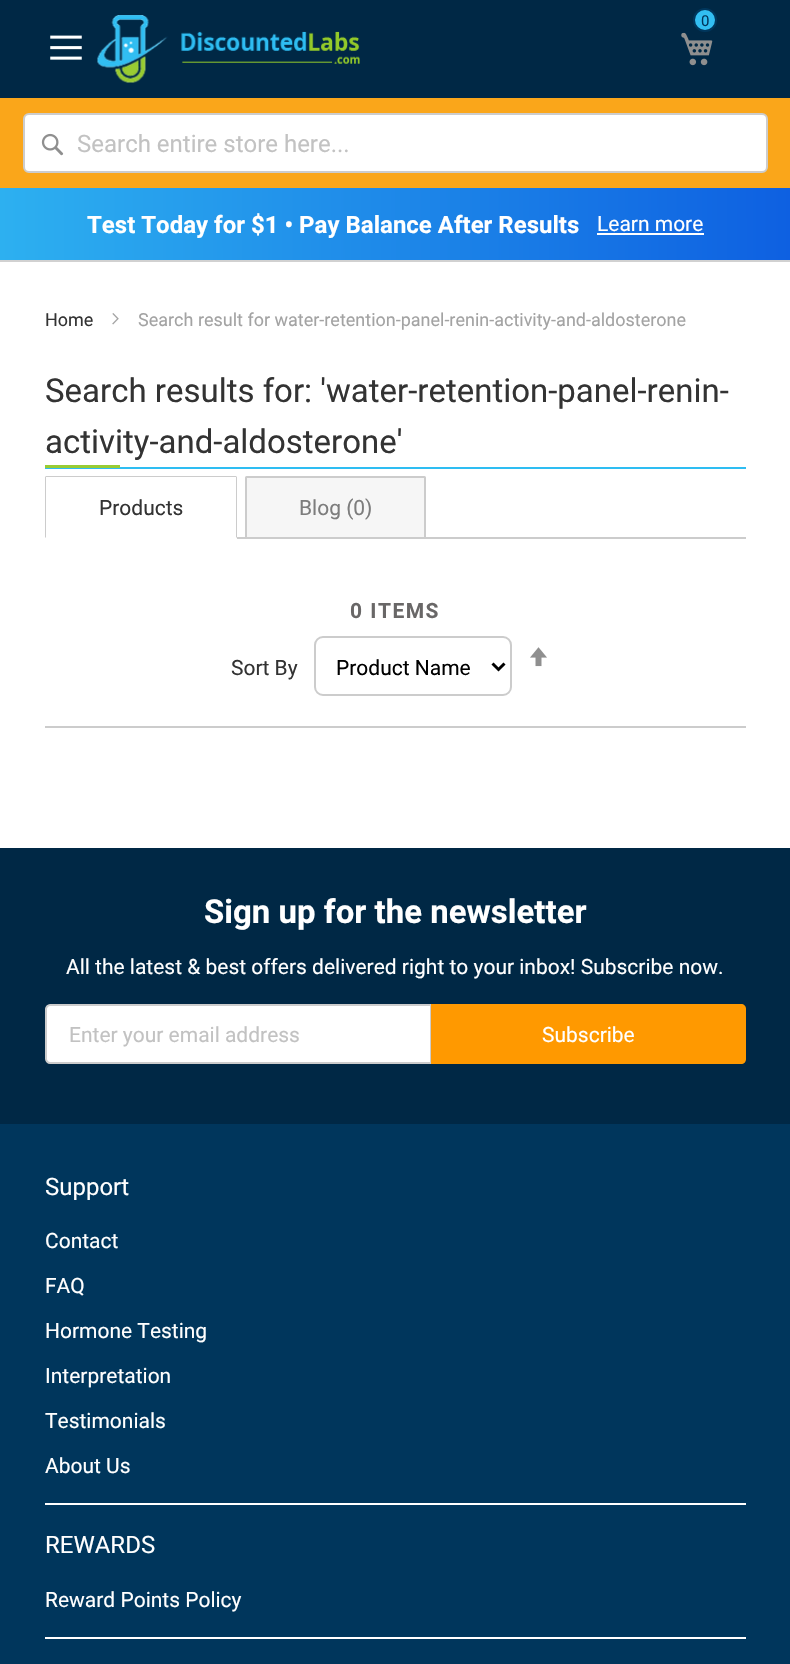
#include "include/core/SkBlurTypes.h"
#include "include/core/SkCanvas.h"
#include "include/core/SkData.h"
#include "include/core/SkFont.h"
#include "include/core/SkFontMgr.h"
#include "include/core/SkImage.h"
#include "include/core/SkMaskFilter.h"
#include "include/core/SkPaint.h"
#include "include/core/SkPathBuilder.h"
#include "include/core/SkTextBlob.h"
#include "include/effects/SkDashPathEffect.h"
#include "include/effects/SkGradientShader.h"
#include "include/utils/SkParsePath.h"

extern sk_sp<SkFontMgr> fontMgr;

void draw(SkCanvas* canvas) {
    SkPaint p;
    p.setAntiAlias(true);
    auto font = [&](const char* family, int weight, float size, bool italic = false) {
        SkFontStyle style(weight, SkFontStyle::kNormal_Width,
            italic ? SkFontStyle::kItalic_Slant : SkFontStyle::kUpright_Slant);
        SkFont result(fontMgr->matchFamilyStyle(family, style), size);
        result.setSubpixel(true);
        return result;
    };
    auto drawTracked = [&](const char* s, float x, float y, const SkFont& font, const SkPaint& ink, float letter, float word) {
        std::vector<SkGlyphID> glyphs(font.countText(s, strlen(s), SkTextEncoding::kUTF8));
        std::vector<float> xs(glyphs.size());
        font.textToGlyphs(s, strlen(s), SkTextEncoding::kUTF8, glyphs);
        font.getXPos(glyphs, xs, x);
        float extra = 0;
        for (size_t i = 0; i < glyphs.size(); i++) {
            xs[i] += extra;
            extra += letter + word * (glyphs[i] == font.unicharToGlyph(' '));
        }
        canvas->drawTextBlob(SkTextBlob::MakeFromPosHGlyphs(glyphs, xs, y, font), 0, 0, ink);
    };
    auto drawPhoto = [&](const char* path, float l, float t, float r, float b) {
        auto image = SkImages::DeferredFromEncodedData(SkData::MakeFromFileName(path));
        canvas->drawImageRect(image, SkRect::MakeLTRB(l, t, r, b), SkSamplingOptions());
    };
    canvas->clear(0xFFFFFFFF);
    p.setColor(0xFF002845);
    canvas->drawRect(SkRect::MakeLTRB(0, 0, 790, 98), p);
    p.setColor(0xFFD1D1D1);
    canvas->drawRect(SkRect::MakeLTRB(0, 260, 790, 262), p);
    drawPhoto("media/1.png", 50, 35, 82, 60);
    drawPhoto("media/2.png", 97, 15, 360, 83);
    p.setColor(0xFF32BEF2);
    canvas->drawCircle(705, 20, 11, p);
    p.setStyle(SkPaint::kStroke_Style);
    p.setStrokeWidth(2);
    p.setColor(0xFF00365C);
    canvas->drawCircle(705, 20, 11, p);
    auto font1 = font("Roboto", 400, 15);
    p.setStyle(SkPaint::kFill_Style);
    canvas->drawString("0", 701, 26, font1, p);
    drawPhoto("media/3.png", 681, 32, 713, 66);
    p.setColor(0xFFFAA61A);
    canvas->drawRect(SkRect::MakeLTRB(0, 98, 790, 188), p);
    p.setColor(0xFFFFFFFF);
    canvas->drawRoundRect(SkRect::MakeLTRB(24, 114, 767, 172), 5, 5, p);
    p.setStyle(SkPaint::kStroke_Style);
    p.setColor(0xFFCCCCCC);
    canvas->drawRoundRect(SkRect::MakeLTRB(24, 114, 767, 172), 5, 5, p);
    drawPhoto("media/4.png", 41, 133, 64, 156);
    auto font2 = font("Roboto", 400, 24);
    p.setStyle(SkPaint::kFill_Style);
    p.setColor(0xFFC2C2C2);
    canvas->drawString("Search entire store here...", 77, 152, font2, p);
    {
        const SkColor colors[] = {0xFF2DB0F0, 0xFF0E60E1};
        const float stops[] = {0, 1};
        const SkPoint ends[] = {{0, 224}, {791, 223}};
        p.setShader(SkGradientShader::MakeLinear(ends, colors, stops, 2, SkTileMode::kClamp));
        p.setAlpha(255);
    }
    canvas->drawRect(SkRect::MakeLTRB(0, 188, 790, 260), p);
    auto font3 = font("Roboto", 700, 24);
    p.setShader(nullptr);
    p.setColor(0xFFFFFFFF);
    canvas->drawString("Test Today for $1 • Pay Balance After Results", 87, 233, font3, p);
    auto font4 = font("Roboto", 400, 21);
    canvas->drawString("Learn more", 597, 231, font4, p);
    canvas->drawRect(SkRect::MakeLTRB(597, 233, 704, 235), p);
    auto font5 = font("Roboto", 400, 18);
    p.setColor(0xFF333333);
    canvas->drawString("Home", 45, 326, font5, p);
    drawPhoto("media/5.png", 112, 313, 119, 325);
    p.setColor(0xFFA3A3A3);
    canvas->drawString("Search result for water-retention-panel-renin-activity-and-aldosterone", 138, 326, font5, p);
    p.setColor(0xFF2EBDF2);
    canvas->drawRect(SkRect::MakeLTRB(45, 467, 746, 469), p);
    auto font6 = font("Roboto", 400, 33);
    p.setColor(0xFF333333);
    canvas->drawString("Search results for: 'water-retention-panel-renin-", 45, 402, font6, p);
    canvas->drawString("activity-and-aldosterone'", 45, 453, font6, p);
    {
        const struct { float l, t, r, b; SkColor color; } items[] = {
            {45, 465, 120, 468, 0xFF99CC33},
            {237, 537, 746, 539, 0xFFCCCCCC},
            {46, 476, 236, 477, 0xFFCCCCCC},
        };
        for (auto [l, t, r, b, color] : items) {
            p.setColor(color);
            canvas->drawRect(SkRect::MakeLTRB(l, t, r, b), p);
        }
    }
    canvas->drawPath(SkPathBuilder().moveTo(236, 476).lineTo(237, 477).lineTo(237, 538).lineTo(236, 537).lineTo(236, 477).close().detach(), p);
    canvas->drawPath(SkPathBuilder().moveTo(46, 477).lineTo(46, 476).lineTo(45, 477).lineTo(45, 538).lineTo(46, 537).close().detach(), p);
    p.setColor(0xFF333333);
    canvas->drawString("Products", 99, 515, font4, p);
    p.setColor(0xFFF6F6F6);
    canvas->drawPath(SkPathBuilder().moveTo(246.5f, 477).lineTo(424.5f, 477).cubicTo(425, 477, 425, 477, 425, 477.5f).lineTo(425, 538).lineTo(246, 538).lineTo(246, 477.5f).cubicTo(246, 477, 246, 477, 246.5f, 477).close().detach(), p);
    p.setStyle(SkPaint::kStroke_Style);
    p.setColor(0xFFCCCCCC);
    canvas->drawPath(SkPathBuilder().moveTo(246.5f, 477).lineTo(424.5f, 477).cubicTo(425, 477, 425, 477, 425, 477.5f).lineTo(425, 538).lineTo(246, 538).lineTo(246, 477.5f).cubicTo(246, 477, 246, 477, 246.5f, 477).close().detach(), p);
    p.setStyle(SkPaint::kFill_Style);
    p.setColor(0xFF7D7D7D);
    canvas->drawString("Blog (0)", 299, 515, font4, p);
    p.setColor(0xFFCCCCCC);
    canvas->drawRect(SkRect::MakeLTRB(45, 726, 746, 728), p);
    auto font7 = font("Roboto", 700, 21);
    p.setColor(0xFF696767);
    drawTracked("0 ITEMS", 350, 618, font7, p, 1.5f, 0);
    drawPhoto("media/6.png", 530, 647, 547, 667);
    p.setColor(0xFF333333);
    canvas->drawString("Sort By", 231, 675, font4, p);
    p.setStyle(SkPaint::kStroke_Style);
    p.setColor(0xFFCCCCCC);
    canvas->drawRoundRect(SkRect::MakeLTRB(315, 637, 511, 695), 8, 8, p);
    p.setStrokeWidth(3);
    p.setColor(0xFF000000);
    canvas->drawPath(SkPathBuilder().moveTo(492.5f, 663.5f).lineTo(498.5f, 669.5f).lineTo(504.5f, 663.5f).detach(), p);
    p.setStyle(SkPaint::kFill_Style);
    canvas->drawString("Product Name", 336, 675, font4, p);
    p.setColor(0xFF002845);
    canvas->drawRect(SkRect::MakeLTRB(0, 848, 790, 1124), p);
    auto font8 = font("Roboto", 700, 33);
    p.setColor(0xFFFFFFFF);
    canvas->drawString("Sign up for the newsletter", 204, 923, font8, p);
    canvas->drawString("All the latest & best offers delivered right to your inbox! Subscribe now.", 66, 974, font4, p);
    canvas->drawPath(SkPathBuilder().moveTo(50, 1005).lineTo(431, 1005).lineTo(431, 1063).lineTo(50, 1063).cubicTo(48, 1063, 46, 1061, 46, 1059).lineTo(46, 1009).cubicTo(46, 1007, 48, 1005, 50, 1005).close().detach(), p);
    p.setStyle(SkPaint::kStroke_Style);
    p.setStrokeWidth(2);
    p.setColor(0xFFCCCCCC);
    canvas->drawPath(SkPathBuilder().moveTo(50, 1005).lineTo(431, 1005).lineTo(431, 1063).lineTo(50, 1063).cubicTo(48, 1063, 46, 1061, 46, 1059).lineTo(46, 1009).cubicTo(46, 1007, 48, 1005, 50, 1005).close().detach(), p);
    p.setStyle(SkPaint::kFill_Style);
    p.setColor(0xFFC2C2C2);
    canvas->drawString("Enter your email address", 69, 1042, font4, p);
    p.setColor(0xFFFF9900);
    canvas->drawPath(SkPathBuilder().moveTo(431, 1004).lineTo(741, 1004).cubicTo(744, 1004, 746, 1006, 746, 1009).lineTo(746, 1059).cubicTo(746, 1062, 744, 1064, 741, 1064).lineTo(431, 1064).close().detach(), p);
    p.setColor(0xFFFFFFFF);
    canvas->drawString("Subscribe", 542, 1042, font4, p);
    p.setColor(0xFF00365C);
    canvas->drawRect(SkRect::MakeLTRB(0, 1124, 790, 1664), p);
    p.setColor(0xFFFFFFFF);
    canvas->drawRect(SkRect::MakeLTRB(45, 1503, 746, 1505), p);
    canvas->drawString("Support", 45, 1195, font2, p);
    {
        const struct { const char* s; float x, y; } items[] = {
            {"Contact", 45, 1248},
            {"FAQ", 45, 1293},
            {"Hormone Testing", 45, 1338},
            {"Interpretation", 45, 1383},
            {"Testimonials", 45, 1428},
            {"About Us", 45, 1473},
        };
        for (auto [s, x, y] : items) {
            canvas->drawString(s, x, y, font4, p);
        }
    }
    canvas->drawRect(SkRect::MakeLTRB(45, 1637, 746, 1639), p);
    canvas->drawString("REWARDS", 45, 1553, font2, p);
    canvas->drawString("Reward Points Policy", 45, 1607, font4, p);
}
